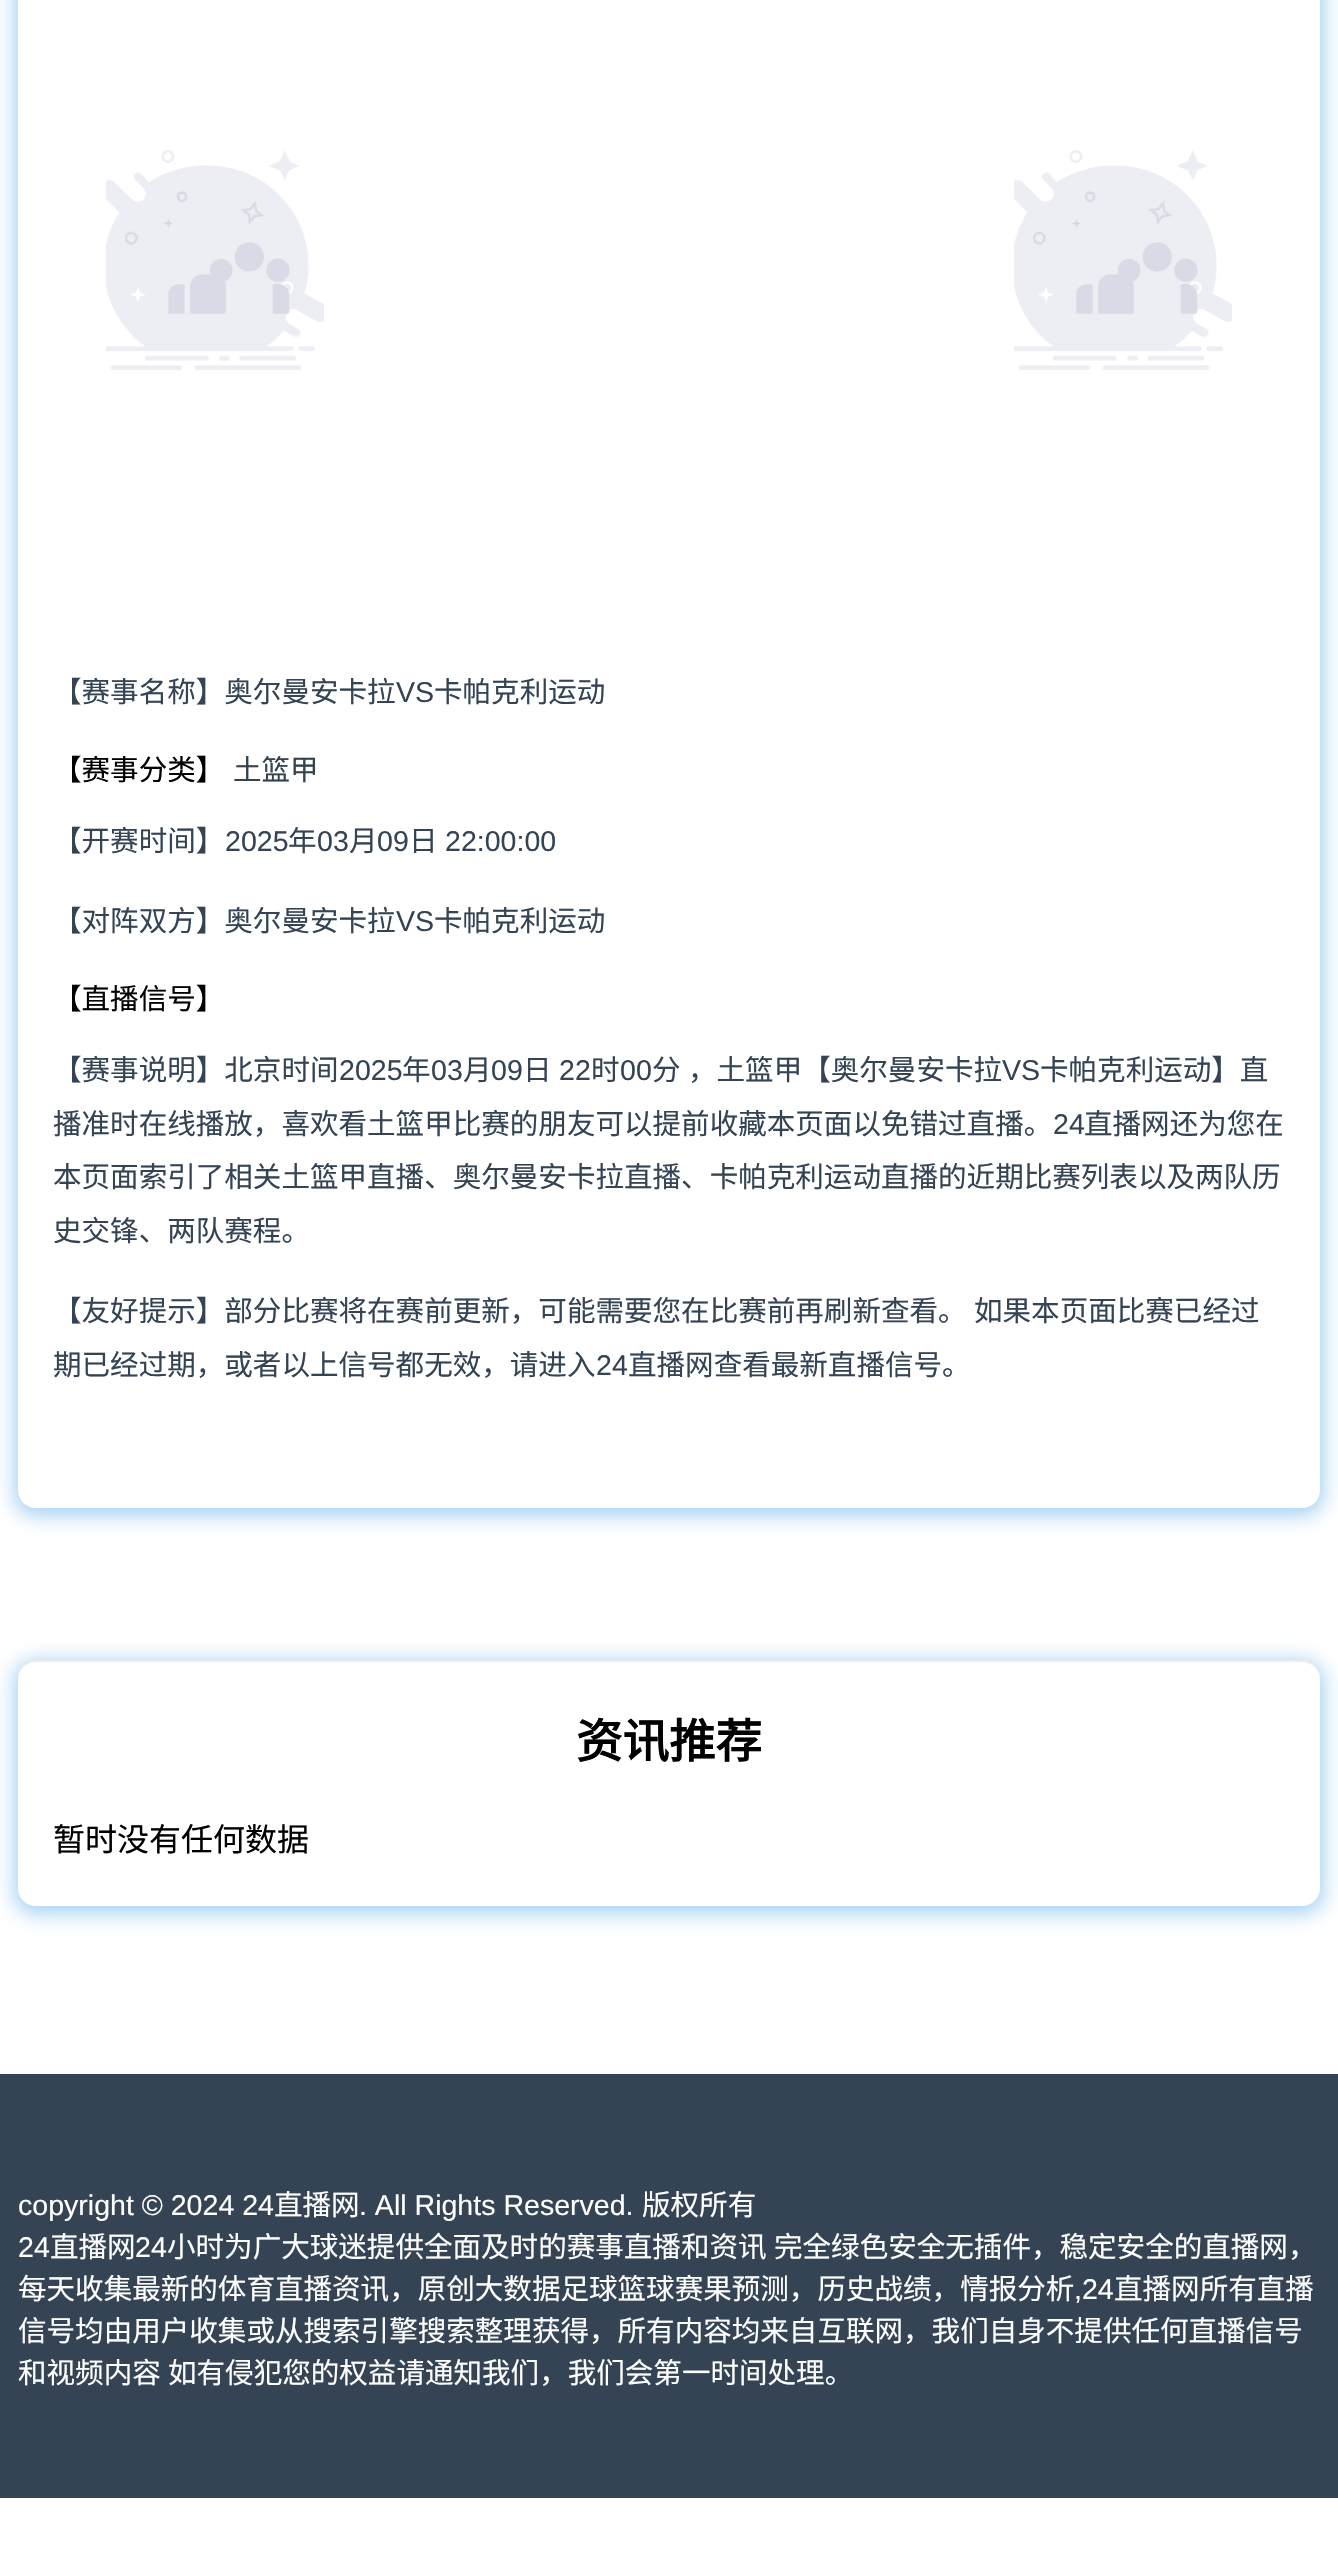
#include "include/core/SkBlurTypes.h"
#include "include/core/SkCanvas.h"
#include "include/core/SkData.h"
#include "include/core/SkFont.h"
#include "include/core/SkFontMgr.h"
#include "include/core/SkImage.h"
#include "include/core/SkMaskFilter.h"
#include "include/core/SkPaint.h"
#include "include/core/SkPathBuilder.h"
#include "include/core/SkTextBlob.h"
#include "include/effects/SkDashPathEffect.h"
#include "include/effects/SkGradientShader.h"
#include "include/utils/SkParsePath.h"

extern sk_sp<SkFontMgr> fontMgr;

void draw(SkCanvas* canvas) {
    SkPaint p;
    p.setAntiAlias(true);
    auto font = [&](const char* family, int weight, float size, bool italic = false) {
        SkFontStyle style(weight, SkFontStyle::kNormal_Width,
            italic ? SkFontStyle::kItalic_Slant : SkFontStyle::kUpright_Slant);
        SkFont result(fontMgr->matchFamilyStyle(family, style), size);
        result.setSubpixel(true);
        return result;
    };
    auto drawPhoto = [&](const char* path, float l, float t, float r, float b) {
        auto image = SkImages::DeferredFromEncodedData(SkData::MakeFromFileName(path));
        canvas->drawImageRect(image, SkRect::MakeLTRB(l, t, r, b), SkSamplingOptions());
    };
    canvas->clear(0xFFFFFFFF);
    canvas->save();
    canvas->clipPath(SkPathBuilder(SkPathFillType::kEvenOdd).moveTo(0, 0).lineTo(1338, 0).lineTo(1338, 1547).lineTo(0, 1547).close().moveTo(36, -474).lineTo(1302, -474).cubicTo(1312, -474, 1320, -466, 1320, -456).lineTo(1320, 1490).cubicTo(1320, 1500, 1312, 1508, 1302, 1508).lineTo(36, 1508).cubicTo(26, 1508, 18, 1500, 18, 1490).lineTo(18, -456).cubicTo(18, -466, 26, -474, 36, -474).close().detach(), true);
    p.setColor(0x9466AFE9);
    p.setMaskFilter(SkMaskFilter::MakeBlur(kNormal_SkBlurStyle, 10));
    canvas->drawRoundRect(SkRect::MakeLTRB(14, -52, 1324, 1516), 22, 22, p);
    p.setMaskFilter(nullptr);
    canvas->restore();
    p.setColor(0x33FFFFFF);
    canvas->drawRoundRect(SkRect::MakeLTRB(18, -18, 1320, 1508), 18, 18, p);
    drawPhoto("media/1.png", 106, 150, 324, 370);
    drawPhoto("media/2.png", 1014, 150, 1232, 370);
    auto font1 = font("Noto Sans CJK SC", 400, 28.55f);
    p.setColor(0xFF354455);
    canvas->drawString("【赛事名称】奥尔曼安卡拉", 53, 702, font1, p);
    auto font2 = font("Liberation Sans", 400, 28.55f);
    canvas->drawString("VS", 396, 702, font2, p);
    canvas->drawString("卡帕克利运动", 434, 702, font1, p);
    p.setColor(0xFF000000);
    canvas->drawString("【赛事分类】", 53, 780, font1, p);
    p.setColor(0xFF35434E);
    canvas->drawString("土篮甲", 233, 780, font1, p);
    p.setColor(0xFF354455);
    canvas->drawString("【开赛时间】", 53, 851, font1, p);
    canvas->drawString("2025", 225, 851, font2, p);
    canvas->drawString("年", 288, 851, font1, p);
    canvas->drawString("03", 317, 851, font2, p);
    canvas->drawString("月", 349, 851, font1, p);
    canvas->drawString("09", 377, 851, font2, p);
    canvas->drawString("日", 409, 851, font1, p);
    canvas->drawString("22:00:00", 445, 851, font2, p);
    canvas->drawString("【对阵双方】奥尔曼安卡拉", 53, 931, font1, p);
    canvas->drawString("VS", 396, 931, font2, p);
    canvas->drawString("卡帕克利运动", 434, 931, font1, p);
    p.setColor(0xFF000000);
    canvas->drawString("【直播信号】", 53, 1009, font1, p);
    p.setColor(0xFF354455);
    canvas->drawString("【赛事说明】北京时间", 53, 1080, font1, p);
    canvas->drawString("2025", 339, 1080, font2, p);
    canvas->drawString("年", 402, 1080, font1, p);
    canvas->drawString("03", 431, 1080, font2, p);
    canvas->drawString("月", 463, 1080, font1, p);
    canvas->drawString("09", 491, 1080, font2, p);
    canvas->drawString("日", 523, 1080, font1, p);
    canvas->drawString("22", 559, 1080, font2, p);
    canvas->drawString("时", 591, 1080, font1, p);
    canvas->drawString("00", 620, 1080, font2, p);
    canvas->drawString("分", 652, 1080, font1, p);
    canvas->drawString("，土篮甲【奥尔曼安卡拉", 688, 1080, font1, p);
    canvas->drawString("VS", 1002, 1080, font2, p);
    canvas->drawString("卡帕克利运动】直", 1040, 1080, font1, p);
    canvas->drawString("播准时在线播放，喜欢看土篮甲比赛的朋友可以提前收藏本页面以免错过直播。", 53, 1134, font1, p);
    canvas->drawString("24", 1053, 1134, font2, p);
    {
        const struct { const char* s; float x, y; } items[] = {
            {"直播网还为您在", 1084, 1134},
            {"本页面索引了相关土篮甲直播、奥尔曼安卡拉直播、卡帕克利运动直播的近期比赛列表以及两队历", 53, 1187},
            {"史交锋、两队赛程。", 53, 1241},
            {"【友好提示】部分比赛将在赛前更新，可能需要您在比赛前再刷新查看。", 53, 1321},
            {"如果本页面比赛已经过", 974, 1321},
            {"期已经过期，或者以上信号都无效，请进入", 53, 1375},
        };
        for (auto [s, x, y] : items) {
            canvas->drawString(s, x, y, font1, p);
        }
    }
    canvas->drawString("24", 596, 1375, font2, p);
    canvas->drawString("直播网查看最新直播信号。", 628, 1375, font1, p);
    canvas->save();
    canvas->clipPath(SkPathBuilder(SkPathFillType::kEvenOdd).moveTo(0, 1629).lineTo(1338, 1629).lineTo(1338, 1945).lineTo(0, 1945).close().moveTo(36, 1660).lineTo(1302, 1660).cubicTo(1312, 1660, 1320, 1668, 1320, 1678).lineTo(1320, 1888).cubicTo(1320, 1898, 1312, 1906, 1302, 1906).lineTo(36, 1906).cubicTo(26, 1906, 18, 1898, 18, 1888).lineTo(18, 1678).cubicTo(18, 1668, 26, 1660, 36, 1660).close().detach(), true);
    p.setColor(0x9466AFE9);
    p.setMaskFilter(SkMaskFilter::MakeBlur(kNormal_SkBlurStyle, 10));
    canvas->drawRoundRect(SkRect::MakeLTRB(14, 1660, 1324, 1914), 22, 22, p);
    p.setMaskFilter(nullptr);
    canvas->restore();
    p.setColor(0x33FFFFFF);
    canvas->drawRoundRect(SkRect::MakeLTRB(18, 1660, 1320, 1906), 18, 18, p);
    p.setColor(0x12000000);
    canvas->drawPath(SkPathBuilder().moveTo(36, 1662).lineTo(1302, 1662).cubicTo(1312, 1662, 1320, 1670, 1320, 1680).cubicTo(1320, 1669, 1314, 1660, 1302, 1660).lineTo(36, 1660).cubicTo(24, 1660, 18, 1669, 18, 1680).cubicTo(18, 1670, 26, 1662, 36, 1662).close().detach(), p);
    auto font3 = font("Noto Sans CJK SC", 700, 46.5f);
    p.setColor(0xFF000000);
    canvas->drawString("资讯推荐", 576, 1758, font3, p);
    auto font4 = font("Noto Sans CJK SC", 400, 32);
    canvas->drawString("暂时没有任何数据", 53, 1851, font4, p);
    p.setColor(0xFF354455);
    canvas->drawRect(SkRect::MakeLTRB(0, 2074, 1338, 2498), p);
    p.setColor(0xFFFFFFFF);
    canvas->drawString("copyright © 2024 24", 18, 2215, font2, p);
    canvas->drawString("直播网", 274, 2215, font1, p);
    canvas->drawString(". All Rights Reserved.", 359, 2215, font2, p);
    canvas->drawString("版权所有", 642, 2215, font1, p);
    canvas->drawString("24", 18, 2257, font2, p);
    canvas->drawString("直播网", 50, 2257, font1, p);
    canvas->drawString("24", 135, 2257, font2, p);
    {
        const struct { const char* s; float x, y; } items[] = {
            {"小时为广大球迷提供全面及时的赛事直播和资讯", 167, 2257},
            {"完全绿色安全无插件，稳定安全的直播网，", 774, 2257},
            {"每天收集最新的体育直播资讯，原创大数据足球篮球赛果预测，历史战绩，情报分析", 18, 2299},
        };
        for (auto [s, x, y] : items) {
            canvas->drawString(s, x, y, font1, p);
        }
    }
    canvas->drawString(",24", 1074, 2299, font2, p);
    {
        const struct { const char* s; float x, y; } items[] = {
            {"直播网所有直播", 1114, 2299},
            {"信号均由用户收集或从搜索引擎搜索整理获得，所有内容均来自互联网，我们自身不提供任何直播信号", 18, 2341},
            {"和视频内容", 18, 2383},
            {"如有侵犯您的权益请通知我们，我们会第一时间处理。", 168, 2383},
        };
        for (auto [s, x, y] : items) {
            canvas->drawString(s, x, y, font1, p);
        }
    }
}
